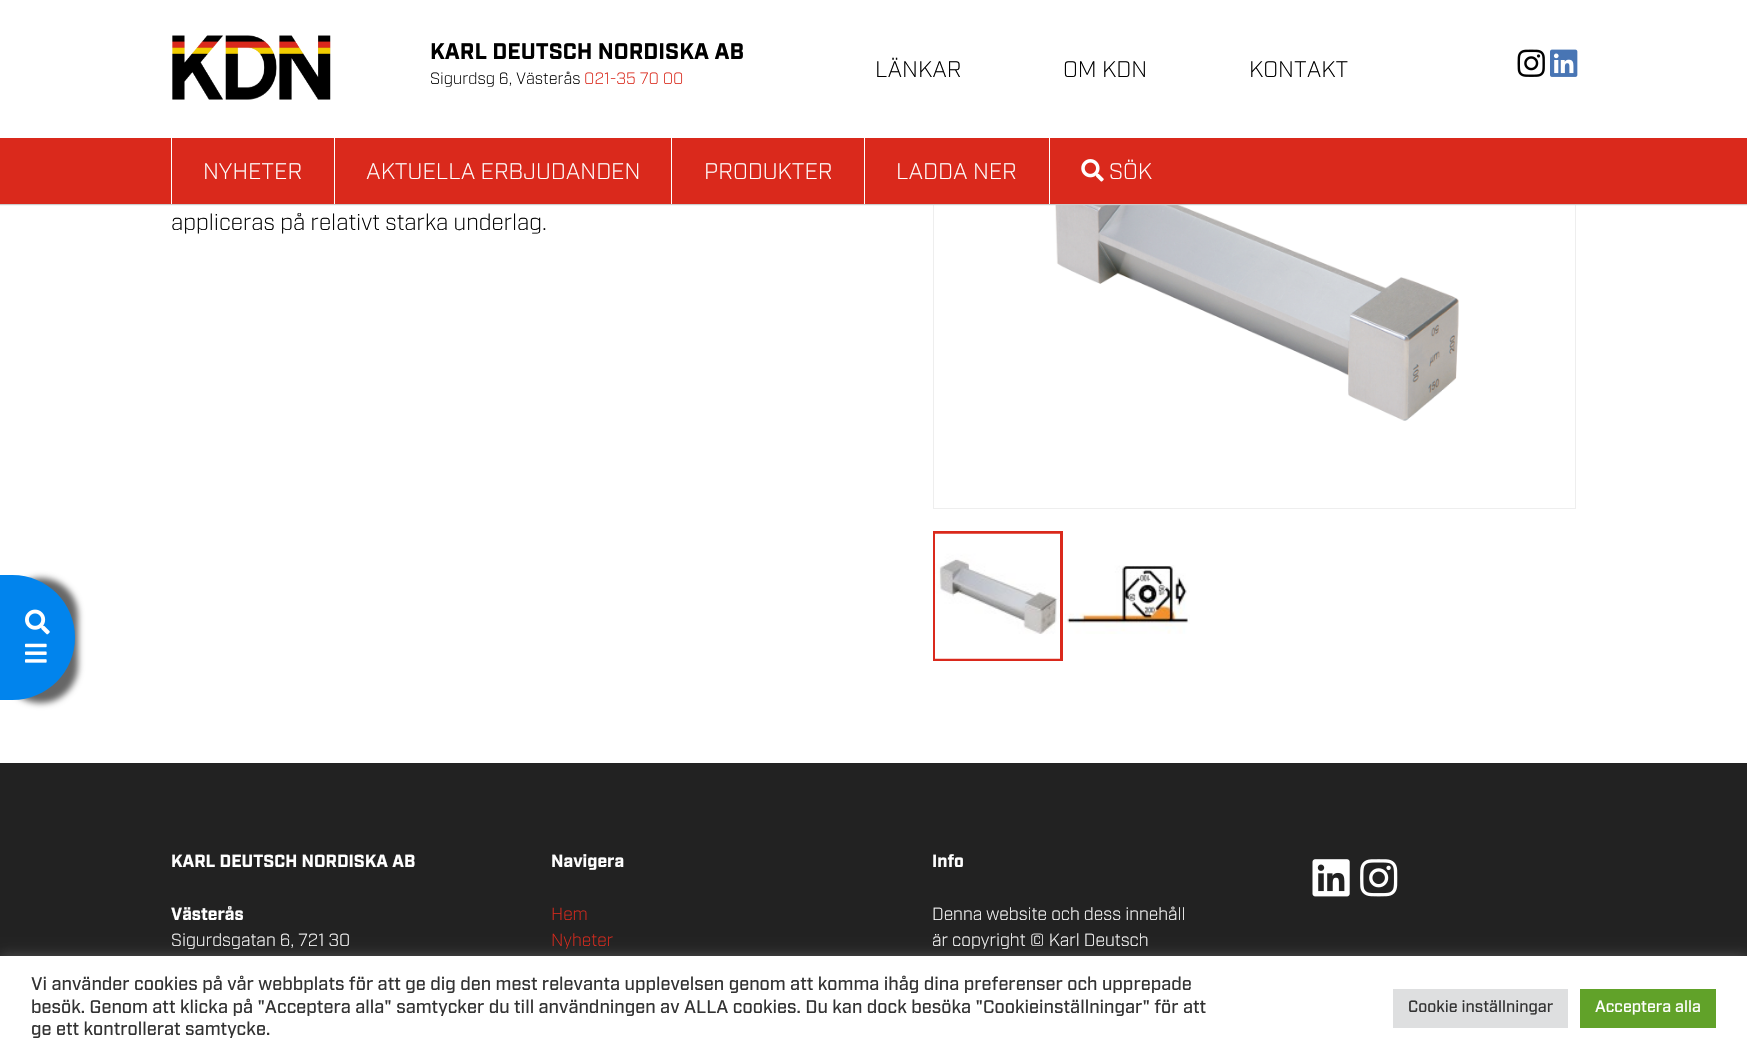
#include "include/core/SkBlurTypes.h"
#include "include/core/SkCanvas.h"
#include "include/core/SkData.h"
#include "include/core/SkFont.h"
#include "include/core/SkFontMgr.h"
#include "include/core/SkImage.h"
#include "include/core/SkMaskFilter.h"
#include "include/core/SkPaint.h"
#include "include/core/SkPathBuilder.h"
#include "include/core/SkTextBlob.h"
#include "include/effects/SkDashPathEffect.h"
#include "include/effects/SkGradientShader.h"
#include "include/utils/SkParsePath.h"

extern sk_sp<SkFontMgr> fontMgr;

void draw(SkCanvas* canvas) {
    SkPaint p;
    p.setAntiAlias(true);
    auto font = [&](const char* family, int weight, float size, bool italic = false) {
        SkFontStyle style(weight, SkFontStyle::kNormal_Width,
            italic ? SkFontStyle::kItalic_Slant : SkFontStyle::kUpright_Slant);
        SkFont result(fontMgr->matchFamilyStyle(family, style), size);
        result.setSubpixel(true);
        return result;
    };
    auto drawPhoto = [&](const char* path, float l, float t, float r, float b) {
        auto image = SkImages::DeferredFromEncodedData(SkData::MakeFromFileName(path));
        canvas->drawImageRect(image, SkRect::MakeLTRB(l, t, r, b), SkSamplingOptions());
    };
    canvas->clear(0xFFFFFFFF);
    p.setStyle(SkPaint::kStroke_Style);
    p.setStrokeWidth(1);
    p.setColor(0xFFEEEEEE);
    canvas->drawRect(SkRect::MakeLTRB(933.5f, 71.5f, 1575.5f, 508.5f), p);
    drawPhoto("media/5.png", 1055, 204, 1459, 421);
    p.setStyle(SkPaint::kFill_Style);
    p.setColor(0xFFCCCCCC);
    p.setMaskFilter(SkMaskFilter::MakeBlur(kNormal_SkBlurStyle, 0.5f));
    canvas->drawRect(SkRect::MakeLTRB(0, 1, 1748, 205), p);
    p.setMaskFilter(nullptr);
    p.setColor(0xFFDA291C);
    canvas->drawRect(SkRect::MakeLTRB(0, 138, 1747, 204), p);
    p.setColor(0xFFFFFFFF);
    canvas->drawRect(SkRect::MakeLTRB(0, 0, 1747, 138), p);
    drawPhoto("media/1.png", 172, 35, 331, 100);
    auto font1 = font("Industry", 700, 22.5f);
    p.setColor(0xFF000000);
    canvas->drawString("KARL DEUTSCH NORDISKA AB", 430, 59, font1, p);
    auto font2 = font("Industry", 300, 16.25f);
    canvas->drawString("Sigurdsg 6, Västerås", 430, 84, font2, p);
    p.setColor(0xFFDA291C);
    canvas->drawString("021-35 70 00", 584, 84, font2, p);
    auto font3 = font("Industry", 300, 22.5f);
    p.setColor(0xFF000000);
    {
        const struct { const char* s; float x, y; } items[] = {
            {"LÄNKAR", 875, 77},
            {"OM KDN", 1063, 77},
            {"KONTAKT", 1249, 77},
        };
        for (auto [s, x, y] : items) {
            canvas->drawString(s, x, y, font3, p);
        }
    }
    drawPhoto("media/2.png", 1517, 49, 1545, 77);
    drawPhoto("media/3.png", 1550, 49, 1578, 77);
    p.setColor(0xFFFFFFFF);
    canvas->drawRect(SkRect::MakeLTRB(171, 138, 172, 204), p);
    canvas->drawString("NYHETER", 203, 179, font3, p);
    canvas->drawRect(SkRect::MakeLTRB(334, 138, 335, 204), p);
    canvas->drawString("AKTUELLA ERBJUDANDEN", 366, 179, font3, p);
    canvas->drawRect(SkRect::MakeLTRB(671, 138, 672, 204), p);
    canvas->drawString("PRODUKTER", 704, 179, font3, p);
    canvas->drawRect(SkRect::MakeLTRB(864, 138, 865, 204), p);
    canvas->drawString("LADDA NER", 896, 179, font3, p);
    canvas->drawRect(SkRect::MakeLTRB(1049, 138, 1050, 204), p);
    drawPhoto("media/4.png", 1081, 159, 1104, 182);
    canvas->drawString("SÖK", 1109, 179, font3, p);
    p.setColor(0xFF000000);
    canvas->drawString("appliceras på relativt starka underlag.", 171, 230, font3, p);
    p.setStyle(SkPaint::kStroke_Style);
    p.setStrokeWidth(3);
    p.setColor(0xFFDA291C);
    canvas->drawRect(SkRect::MakeLTRB(934.5f, 532.5f, 1061.5f, 659.5f), p);
    drawPhoto("media/6.png", 935, 533, 1060, 659);
    drawPhoto("media/7.png", 1065, 565, 1190, 634);
    p.setStyle(SkPaint::kFill_Style);
    p.setColor(0x99000000);
    p.setMaskFilter(SkMaskFilter::MakeBlur(kNormal_SkBlurStyle, 3));
    canvas->drawRoundRect(SkRect::MakeLTRB(3, 578, 78, 703), 63, 63, p);
    p.setMaskFilter(nullptr);
    p.setColor(0xFF0184ED);
    canvas->drawPath(SkPathBuilder().moveTo(0, 575).lineTo(12.5f, 575).cubicTo(47, 575, 75, 603, 75, 637.5f).cubicTo(75, 672, 47, 700, 12.5f, 700).lineTo(0, 700).close().detach(), p);
    drawPhoto("media/8.png", 25, 609, 50, 635);
    drawPhoto("media/9.png", 25, 643, 47, 663);
    p.setColor(0xFF222222);
    canvas->drawRect(SkRect::MakeLTRB(0, 763, 1747, 956), p);
    auto font4 = font("Industry", 700, 17.5f);
    p.setColor(0xFFFFFFFF);
    canvas->drawString("KARL DEUTSCH NORDISKA AB", 171, 867, font4, p);
    canvas->drawString("Västerås", 171, 920, font4, p);
    auto font5 = font("Industry", 300, 17.5f);
    canvas->drawString("Sigurdsgatan 6, 721 30", 171, 946, font5, p);
    canvas->drawString("Navigera", 551, 867, font4, p);
    p.setColor(0xFFDA291C);
    canvas->drawString("Hem", 551, 920, font5, p);
    canvas->drawString("Nyheter", 551, 946, font5, p);
    p.setColor(0xFFFFFFFF);
    canvas->drawString("Info", 932, 867, font4, p);
    canvas->drawString("Denna website och dess innehåll", 932, 920, font5, p);
    canvas->drawString("är copyright © Karl Deutsch", 932, 946, font5, p);
    drawPhoto("media/10.png", 1312, 859, 1350, 897);
    drawPhoto("media/11.png", 1360, 859, 1398, 897);
    p.setColor(0x4DACABAB);
    p.setMaskFilter(SkMaskFilter::MakeBlur(kNormal_SkBlurStyle, 6));
    canvas->drawRect(SkRect::MakeLTRB(0, 955, 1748, 1058), p);
    p.setMaskFilter(nullptr);
    p.setColor(0xFFFFFFFF);
    canvas->drawRect(SkRect::MakeLTRB(0, 956, 1747, 1058), p);
    auto font6 = font("Industry", 500, 18.33f);
    p.setColor(0xFF333333);
    {
        const struct { const char* s; float x, y; } items[] = {
            {"Vi använder cookies på vår webbplats för att ge dig den mest relevanta upplevelsen genom att komma ihåg dina preferenser och upprepade", 31, 990},
            {"besök. Genom att klicka på \"Acceptera alla\" samtycker du till användningen av ALLA cookies. Du kan dock besöka \"Cookieinställningar\" för att", 31, 1013},
            {"ge ett kontrollerat samtycke.", 31, 1035},
        };
        for (auto [s, x, y] : items) {
            canvas->drawString(s, x, y, font6, p);
        }
    }
    p.setColor(0xFFDEDFE0);
    canvas->drawRect(SkRect::MakeLTRB(1393, 989, 1568, 1028), p);
    auto font7 = font("Industry", 500, 16.25f);
    p.setColor(0xFF333333);
    canvas->drawString("Cookie inställningar", 1408, 1012, font7, p);
    p.setColor(0xFF61A229);
    canvas->drawRect(SkRect::MakeLTRB(1580, 989, 1716, 1028), p);
    p.setColor(0xFFFFFFFF);
    canvas->drawString("Acceptera alla", 1595, 1012, font7, p);
}
